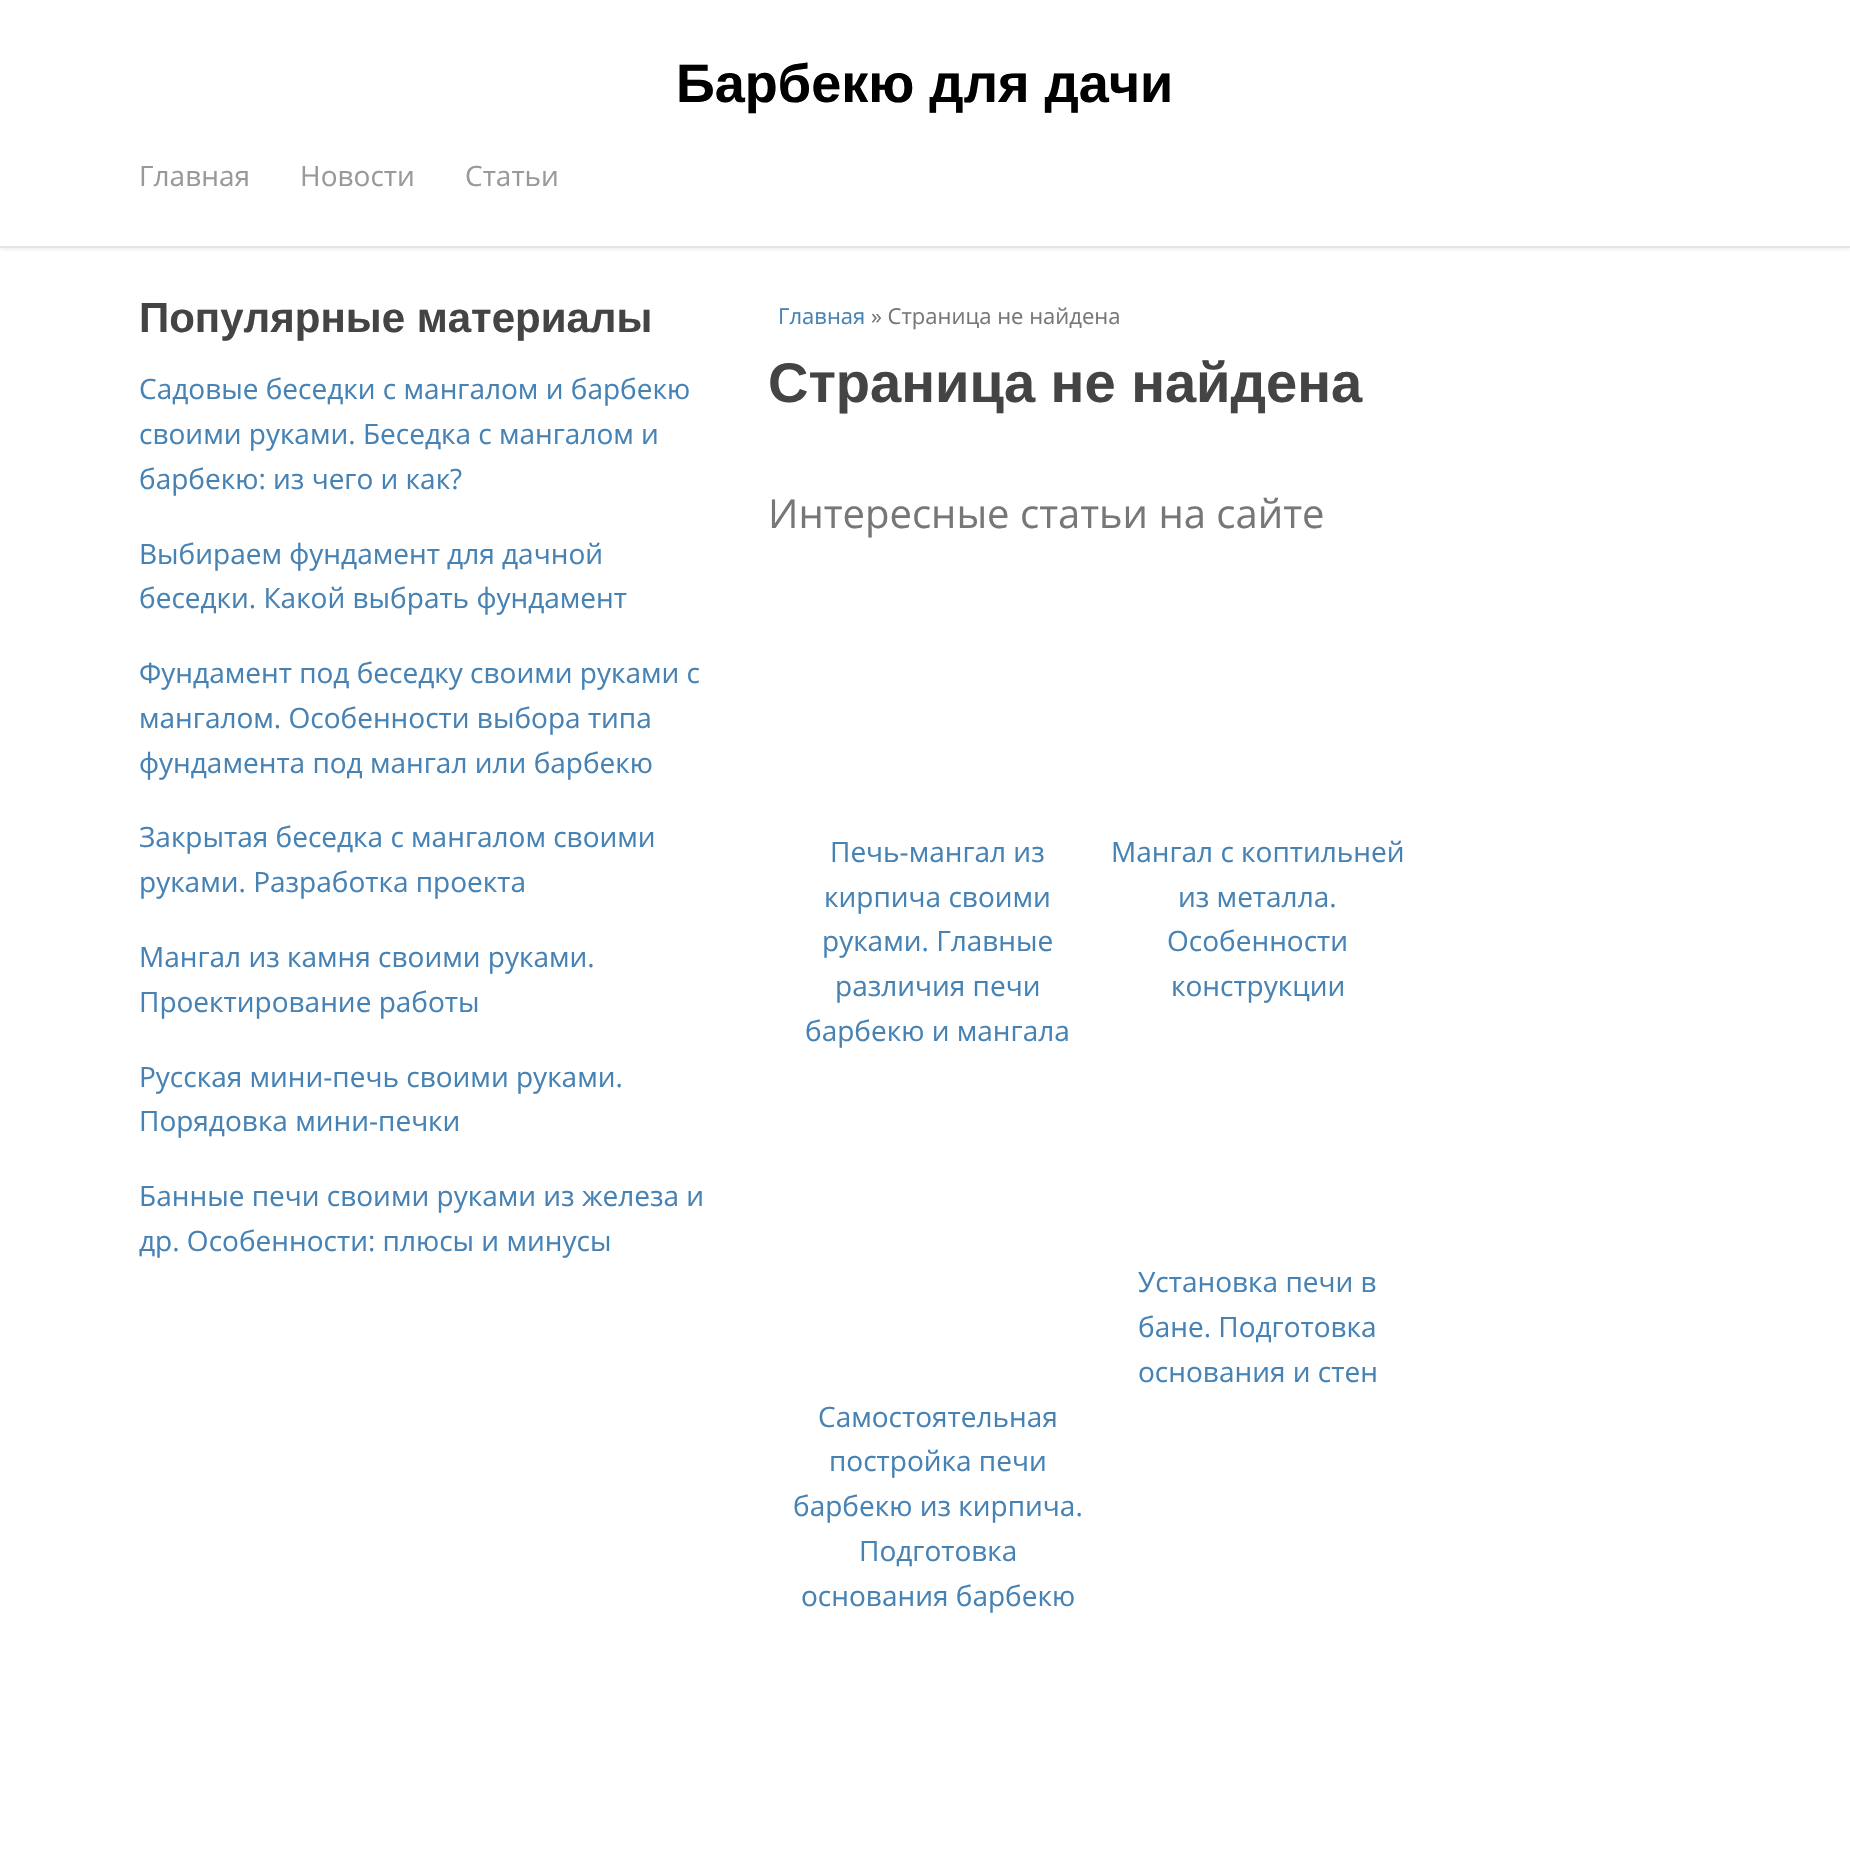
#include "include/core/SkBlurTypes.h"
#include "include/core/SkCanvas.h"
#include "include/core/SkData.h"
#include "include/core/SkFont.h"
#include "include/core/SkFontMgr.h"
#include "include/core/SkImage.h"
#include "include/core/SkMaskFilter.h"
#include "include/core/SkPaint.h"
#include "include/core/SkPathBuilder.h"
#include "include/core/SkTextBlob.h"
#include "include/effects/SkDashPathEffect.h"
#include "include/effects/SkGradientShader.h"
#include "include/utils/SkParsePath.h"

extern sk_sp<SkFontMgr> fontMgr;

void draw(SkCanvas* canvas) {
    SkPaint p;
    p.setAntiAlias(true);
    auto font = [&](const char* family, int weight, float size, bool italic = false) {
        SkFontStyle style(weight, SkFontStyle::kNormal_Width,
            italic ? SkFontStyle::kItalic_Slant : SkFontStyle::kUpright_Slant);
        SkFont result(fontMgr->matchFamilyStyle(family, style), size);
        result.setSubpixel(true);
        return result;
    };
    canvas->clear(0xFFFFFFFF);
    canvas->save();
    canvas->clipRect(SkRect::MakeLTRB(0, 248, 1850, 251));
    p.setColor(0x1A000000);
    p.setMaskFilter(SkMaskFilter::MakeBlur(kNormal_SkBlurStyle, 3));
    canvas->drawRect(SkRect::MakeLTRB(0, 0, 1850, 248), p);
    p.setMaskFilter(nullptr);
    canvas->restore();
    p.setColor(0xFFE4E4E4);
    canvas->drawRect(SkRect::MakeLTRB(0, 246, 1850, 248), p);
    auto font1 = font("Liberation Sans", 700, 54);
    p.setColor(0xFF000000);
    canvas->drawString("Барбекю для дачи", 676, 102, font1, p);
    auto font2 = font("Open Sans", 400, 28);
    p.setColor(0xFF999999);
    {
        const struct { const char* s; float x, y; } items[] = {
            {"Главная", 139, 186},
            {"Новости", 300, 186},
            {"Статьи", 465, 186},
        };
        for (auto [s, x, y] : items) {
            canvas->drawString(s, x, y, font2, p);
        }
    }
    auto font3 = font("Liberation Sans", 700, 42);
    p.setColor(0xFF444444);
    canvas->drawString("Популярные материалы", 139, 332, font3, p);
    p.setColor(0xFF4682B4);
    {
        const struct { const char* s; float x, y; } items[] = {
            {"Садовые беседки с мангалом и барбекю", 139, 399},
            {"своими руками. Беседка с мангалом и", 139, 444},
            {"барбекю: из чего и как?", 139, 489},
            {"Выбираем фундамент для дачной", 139, 564},
            {"беседки. Какой выбрать фундамент", 139, 608},
            {"Фундамент под беседку своими руками с", 139, 683},
            {"мангалом. Особенности выбора типа", 139, 728},
            {"фундамента под мангал или барбекю", 139, 773},
            {"Закрытая беседка с мангалом своими", 139, 847},
            {"руками. Разработка проекта", 139, 892},
            {"Мангал из камня своими руками.", 139, 967},
            {"Проектирование работы", 139, 1012},
            {"Русская мини-печь своими руками.", 139, 1087},
            {"Порядовка мини-печки", 139, 1131},
            {"Банные печи своими руками из железа и", 139, 1206},
            {"др. Особенности: плюсы и минусы", 139, 1251},
        };
        for (auto [s, x, y] : items) {
            canvas->drawString(s, x, y, font2, p);
        }
    }
    auto font4 = font("Open Sans", 400, 22);
    canvas->drawString("Главная", 778, 324, font4, p);
    p.setColor(0xFF777777);
    canvas->drawString("» Страница не найдена", 871, 324, font4, p);
    auto font5 = font("Liberation Sans", 700, 56);
    p.setColor(0xFF444444);
    canvas->drawString("Страница не найдена", 768, 402, font5, p);
    auto font6 = font("Open Sans", 400, 40);
    p.setColor(0xFF777777);
    canvas->drawString("Интересные статьи на сайте", 768, 528, font6, p);
    p.setColor(0xFF4682B4);
    {
        const struct { const char* s; float x, y; } items[] = {
            {"Печь-мангал из", 830, 862},
            {"кирпича своими", 824, 907},
            {"руками. Главные", 822, 951},
            {"различия печи", 835, 996},
            {"барбекю и мангала", 805, 1041},
            {"Мангал с коптильней", 1111, 862},
            {"из металла.", 1178, 907},
            {"Особенности", 1167, 951},
            {"конструкции", 1171, 996},
            {"Установка печи в", 1138, 1292},
            {"бане. Подготовка", 1138, 1337},
            {"основания и стен", 1138, 1382},
            {"Самостоятельная", 818, 1427},
            {"постройка печи", 829, 1471},
            {"барбекю из кирпича.", 793, 1516},
            {"Подготовка", 859, 1561},
            {"основания барбекю", 801, 1606},
        };
        for (auto [s, x, y] : items) {
            canvas->drawString(s, x, y, font2, p);
        }
    }
}
